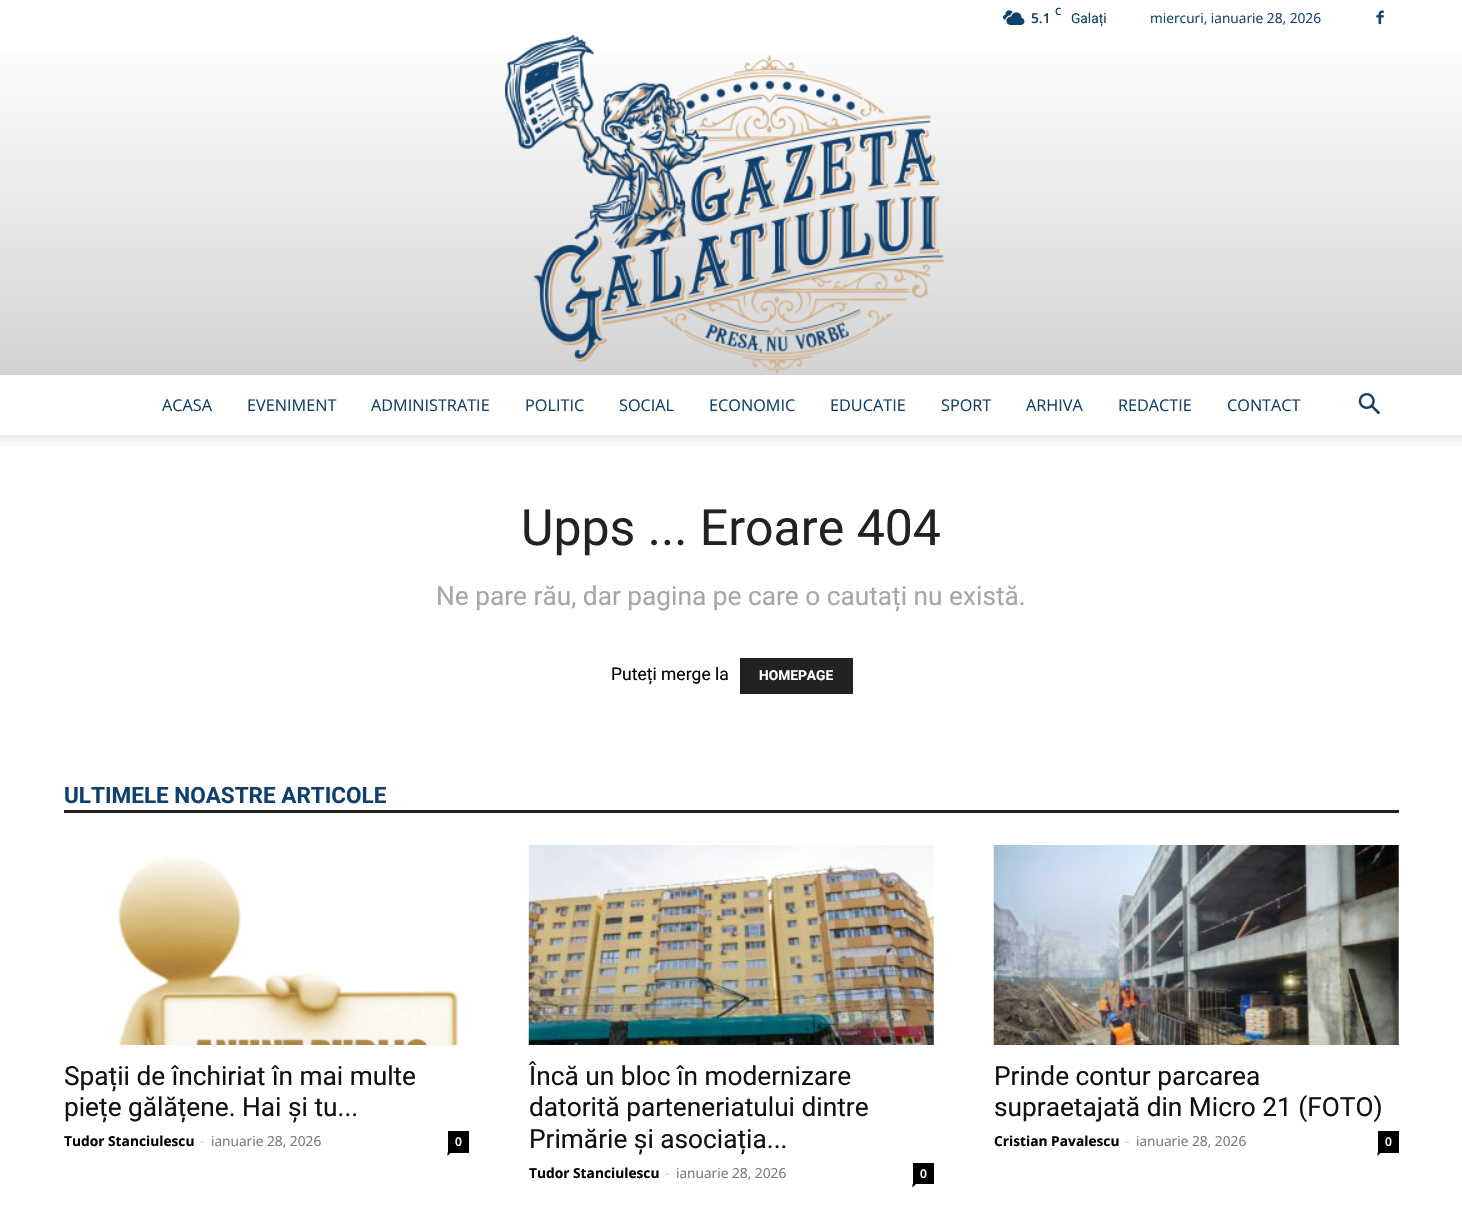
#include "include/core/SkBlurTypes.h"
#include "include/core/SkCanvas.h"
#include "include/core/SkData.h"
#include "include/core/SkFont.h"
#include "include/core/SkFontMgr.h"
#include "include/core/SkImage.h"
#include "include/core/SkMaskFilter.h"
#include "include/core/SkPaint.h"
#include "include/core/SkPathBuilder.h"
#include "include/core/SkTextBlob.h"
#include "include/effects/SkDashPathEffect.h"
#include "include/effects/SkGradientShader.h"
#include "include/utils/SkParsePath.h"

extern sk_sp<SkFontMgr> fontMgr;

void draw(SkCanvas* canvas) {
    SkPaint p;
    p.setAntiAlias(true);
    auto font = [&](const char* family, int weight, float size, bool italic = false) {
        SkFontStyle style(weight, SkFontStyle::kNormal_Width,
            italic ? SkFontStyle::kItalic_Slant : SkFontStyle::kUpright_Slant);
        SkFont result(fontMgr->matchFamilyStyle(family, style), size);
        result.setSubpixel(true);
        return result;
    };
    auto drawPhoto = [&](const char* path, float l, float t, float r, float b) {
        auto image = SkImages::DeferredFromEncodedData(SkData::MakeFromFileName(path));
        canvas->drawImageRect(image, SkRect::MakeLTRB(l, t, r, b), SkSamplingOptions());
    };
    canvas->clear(0xFFFFFFFF);
    drawPhoto("media/1.png", 1003, 10, 1025, 25);
    auto font1 = font("Open Sans", 600, 10);
    p.setColor(0xFF12406C);
    canvas->drawString("C", 1055, 15, font1, p);
    auto font2 = font("Open Sans", 600, 13.75f);
    canvas->drawString("5.1", 1031, 23, font2, p);
    auto font3 = font("Roboto", 400, 13.75f);
    canvas->drawString("Galați", 1071, 23, font3, p);
    auto font4 = font("Open Sans", 400, 13.75f);
    canvas->drawString("miercuri, ianuarie 28, 2026", 1150, 23, font4, p);
    drawPhoto("media/2.png", 1376, 10, 1384, 25);
    {
        const SkColor colors[] = {0xFFFFFFFF, 0xFFD3D3D3};
        const float stops[] = {0, 1};
        const SkPoint ends[] = {{731, 35}, {731, 375}};
        p.setShader(SkGradientShader::MakeLinear(ends, colors, stops, 2, SkTileMode::kClamp));
        p.setAlpha(255);
    }
    canvas->drawRect(SkRect::MakeLTRB(0, 54, 1462, 375), p);
    drawPhoto("media/3.png", 505, 35, 944, 375);
    auto font5 = font("Open Sans", 400, 16.25f);
    p.setShader(nullptr);
    p.setColor(0xFF12406C);
    {
        const struct { const char* s; float x, y; } items[] = {
            {"ACASA", 162, 411},
            {"EVENIMENT", 247, 411},
            {"ADMINISTRATIE", 371, 411},
            {"POLITIC", 525, 411},
            {"SOCIAL", 619, 411},
            {"ECONOMIC", 709, 411},
            {"EDUCATIE", 830, 411},
            {"SPORT", 941, 411},
            {"ARHIVA", 1026, 411},
            {"REDACTIE", 1118, 411},
            {"CONTACT", 1227, 411},
        };
        for (auto [s, x, y] : items) {
            canvas->drawString(s, x, y, font5, p);
        }
    }
    drawPhoto("media/4.png", 1358, 393, 1380, 415);
    drawPhoto("media/5.png", 0, 435, 1462, 446);
    auto font6 = font("Roboto", 400, 50);
    p.setColor(0xFF222222);
    canvas->drawString("Upps ... Eroare 404", 521, 545, font6, p);
    auto font7 = font("Roboto", 400, 26.25f);
    p.setColor(0xFFA6A6A6);
    canvas->drawString("Ne pare rău, dar pagina pe care o cautați nu există.", 436, 605, font7, p);
    auto font8 = font("Roboto", 400, 17.5f);
    p.setColor(0xFF000000);
    canvas->drawString("Puteți merge la", 611, 680, font8, p);
    p.setColor(0xFF222222);
    canvas->drawRect(SkRect::MakeLTRB(740, 658, 853, 694), p);
    auto font9 = font("Roboto", 700, 13.75f);
    p.setColor(0xFFFFFFFF);
    canvas->drawString("HOMEPAGE", 759, 680, font9, p);
    p.setColor(0xFF222222);
    canvas->drawRect(SkRect::MakeLTRB(64, 810, 1399, 813), p);
    auto font10 = font("Roboto", 700, 22.5f);
    p.setColor(0xFF12406C);
    canvas->drawString("ULTIMELE NOASTRE ARTICOLE", 64, 803, font10, p);
    drawPhoto("media/6.png", 114, 856, 459, 1045);
    p.setColor(0xFF111111);
    canvas->drawString("Spații de închiriat în mai multe", 64, 1085, font7, p);
    canvas->drawString("piețe gălățene. Hai și tu...", 64, 1116, font7, p);
    auto font11 = font("Open Sans", 700, 13.75f);
    p.setColor(0xFF000000);
    canvas->drawString("Tudor Stanciulescu", 64, 1146, font11, p);
    p.setColor(0xFFCCCCCC);
    canvas->drawString("-", 200, 1146, font4, p);
    p.setColor(0xFF767676);
    canvas->drawString("ianuarie 28, 2026", 211, 1146, font4, p);
    p.setColor(0xFF000000);
    canvas->drawRect(SkRect::MakeLTRB(448, 1131, 469, 1153), p);
    auto font12 = font("Open Sans", 600, 12);
    p.setColor(0xFFFFFFFF);
    canvas->drawString("0", 455, 1146, font12, p);
    p.setColor(0xFF000000);
    canvas->drawPath(SkPathBuilder().moveTo(447.5f, 1152.5f).lineTo(451, 1152.5f).lineTo(447.5f, 1156).close().detach(), p);
    drawPhoto("media/7.png", 528, 845, 934, 1045);
    p.setColor(0xFF111111);
    {
        const struct { const char* s; float x, y; } items[] = {
            {"Încă un bloc în modernizare", 529, 1085},
            {"datorită parteneriatului dintre", 529, 1116},
            {"Primărie și asociația...", 529, 1148},
        };
        for (auto [s, x, y] : items) {
            canvas->drawString(s, x, y, font7, p);
        }
    }
    p.setColor(0xFF000000);
    canvas->drawString("Tudor Stanciulescu", 529, 1178, font11, p);
    p.setColor(0xFFCCCCCC);
    canvas->drawString("-", 665, 1178, font4, p);
    p.setColor(0xFF767676);
    canvas->drawString("ianuarie 28, 2026", 676, 1178, font4, p);
    p.setColor(0xFF000000);
    canvas->drawRect(SkRect::MakeLTRB(913, 1163, 934, 1184), p);
    p.setColor(0xFFFFFFFF);
    canvas->drawString("0", 920, 1178, font12, p);
    p.setColor(0xFF000000);
    canvas->drawPath(SkPathBuilder().moveTo(912.5f, 1184).lineTo(916, 1184).lineTo(912.5f, 1187.5f).close().detach(), p);
    drawPhoto("media/8.png", 993, 845, 1399, 1045);
    p.setColor(0xFF111111);
    canvas->drawString("Prinde contur parcarea", 994, 1085, font7, p);
    canvas->drawString("supraetajată din Micro 21 (FOTO)", 994, 1116, font7, p);
    p.setColor(0xFF000000);
    canvas->drawString("Cristian Pavalescu", 994, 1146, font11, p);
    p.setColor(0xFFCCCCCC);
    canvas->drawString("-", 1125, 1146, font4, p);
    p.setColor(0xFF767676);
    canvas->drawString("ianuarie 28, 2026", 1136, 1146, font4, p);
    p.setColor(0xFF000000);
    canvas->drawRect(SkRect::MakeLTRB(1378, 1131, 1399, 1153), p);
    p.setColor(0xFFFFFFFF);
    canvas->drawString("0", 1385, 1146, font12, p);
    p.setColor(0xFF000000);
    canvas->drawPath(SkPathBuilder().moveTo(1377.5f, 1152.5f).lineTo(1381, 1152.5f).lineTo(1377.5f, 1156).close().detach(), p);
}
